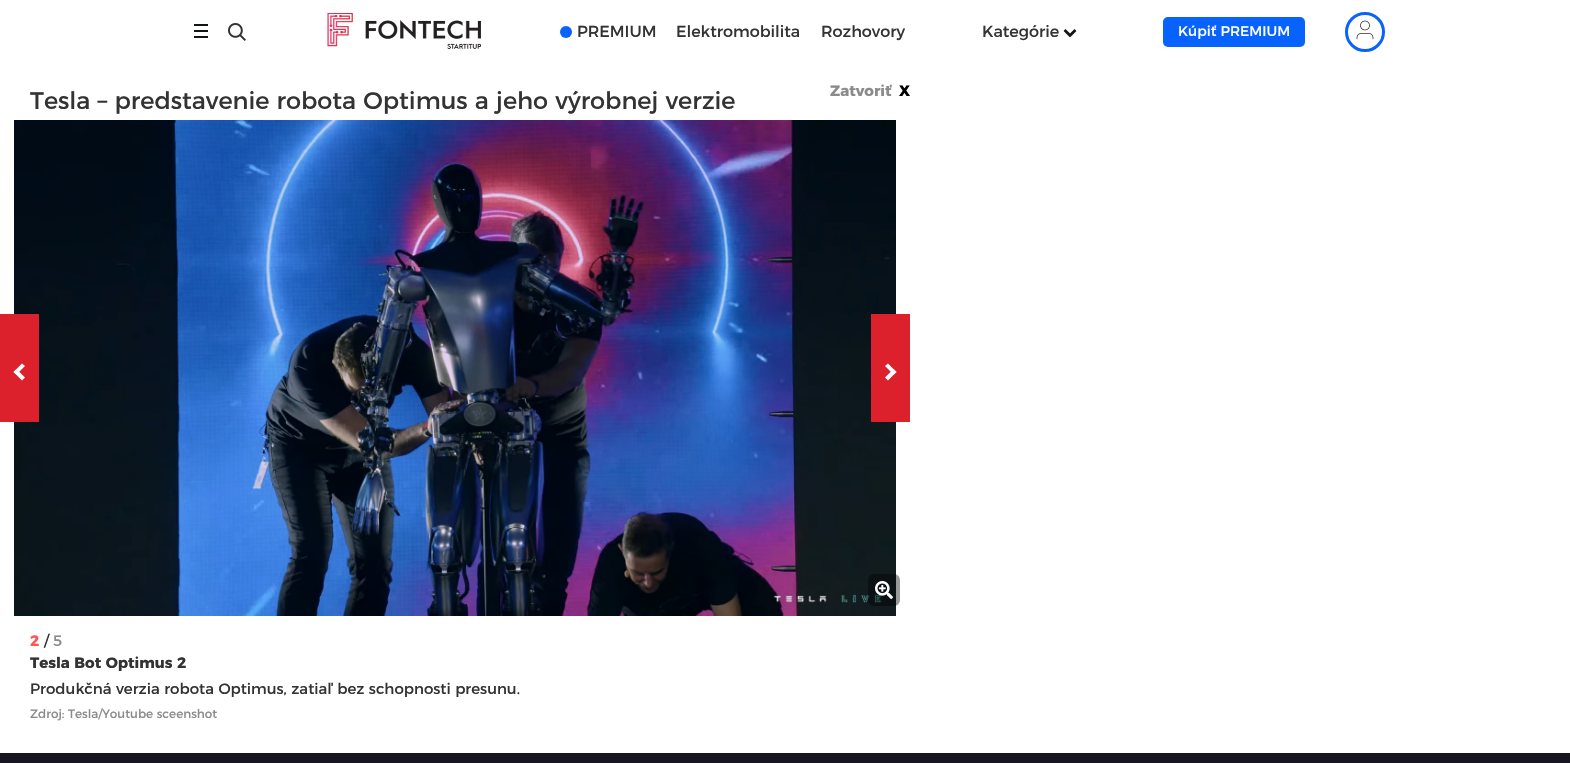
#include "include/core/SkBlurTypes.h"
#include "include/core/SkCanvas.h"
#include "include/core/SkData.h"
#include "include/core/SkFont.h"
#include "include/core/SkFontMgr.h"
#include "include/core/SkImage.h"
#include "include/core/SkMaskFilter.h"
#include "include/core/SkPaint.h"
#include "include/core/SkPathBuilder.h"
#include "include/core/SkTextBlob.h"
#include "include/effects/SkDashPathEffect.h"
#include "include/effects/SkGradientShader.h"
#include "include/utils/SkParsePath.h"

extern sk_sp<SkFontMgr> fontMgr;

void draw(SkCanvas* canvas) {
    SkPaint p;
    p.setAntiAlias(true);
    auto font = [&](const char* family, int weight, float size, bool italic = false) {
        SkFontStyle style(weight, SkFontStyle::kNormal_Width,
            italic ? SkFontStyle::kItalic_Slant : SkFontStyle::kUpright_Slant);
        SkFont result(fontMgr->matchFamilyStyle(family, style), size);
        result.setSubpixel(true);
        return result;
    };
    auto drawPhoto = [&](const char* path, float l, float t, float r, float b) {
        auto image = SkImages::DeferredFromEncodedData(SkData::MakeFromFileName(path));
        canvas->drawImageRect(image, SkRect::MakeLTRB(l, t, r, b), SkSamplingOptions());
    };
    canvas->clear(0xFFFFFFFF);
    {
        const struct { float l, t, r, b; SkColor color; } items[] = {
            {194, 24, 208, 26, 0xFF111517},
            {194, 30, 208, 32, 0xFF111517},
            {194, 36, 208, 38, 0xFF111517},
        };
        for (auto [l, t, r, b, color] : items) {
            p.setColor(color);
            canvas->drawRect(SkRect::MakeLTRB(l, t, r, b), p);
        }
    }
    drawPhoto("media/1.png", 228, 23, 246, 41);
    drawPhoto("media/2.png", 327, 13, 481, 49);
    p.setColor(0xFF0862FD);
    canvas->drawCircle(566, 32, 6, p);
    auto font1 = font("Montserrat", 400, 16);
    p.setColor(0xFF333333);
    {
        const struct { const char* s; float x, y; } items[] = {
            {"PREMIUM", 577, 37},
            {"Elektromobilita", 676, 37},
            {"Rozhovory", 821, 37},
            {"Kategórie", 982, 37},
        };
        for (auto [s, x, y] : items) {
            canvas->drawString(s, x, y, font1, p);
        }
    }
    drawPhoto("media/3.png", 1063, 29, 1077, 38);
    p.setColor(0xFF0862FD);
    canvas->drawRoundRect(SkRect::MakeLTRB(1163, 17, 1305, 47), 5, 5, p);
    auto font2 = font("Montserrat", 400, 14);
    p.setColor(0xFFFFFFFF);
    canvas->drawString("Kúpiť PREMIUM", 1178, 36, font2, p);
    p.setStyle(SkPaint::kStroke_Style);
    p.setStrokeWidth(3);
    p.setColor(0xFF0862FD);
    canvas->drawCircle(1365, 32, 18.5f, p);
    drawPhoto("media/4.png", 1356, 20, 1374, 40);
    auto font3 = font("Montserrat", 400, 24);
    p.setStyle(SkPaint::kFill_Style);
    p.setColor(0xFF333333);
    canvas->drawString("Tesla – predstavenie robota Optimus a jeho výrobnej verzie", 30, 109, font3, p);
    auto font4 = font("Montserrat", 700, 15);
    p.setColor(0xFF8B8B8B);
    canvas->drawString("Zatvoriť", 830, 96, font4, p);
    p.setColor(0xFF000000);
    canvas->drawString("X", 899, 96, font4, p);
    drawPhoto("media/5.png", 14, 120, 896, 616);
    p.setColor(0xFFDC202C);
    canvas->drawRect(SkRect::MakeLTRB(0, 314, 39, 422), p);
    p.setColor(0xFFFFFFFF);
    canvas->drawPath(SkPathBuilder().moveTo(25, 377.5f).lineTo(22, 380.5f).lineTo(13.5f, 372).lineTo(16.5f, 369).close().detach(), p);
    canvas->drawPath(SkPathBuilder().moveTo(25, 366).lineTo(16.5f, 374.5f).lineTo(13.5f, 372).lineTo(22, 363.5f).close().detach(), p);
    p.setColor(0xFFDC202C);
    canvas->drawRect(SkRect::MakeLTRB(871, 314, 910, 422), p);
    p.setColor(0xFFFFFFFF);
    canvas->drawPath(SkPathBuilder().moveTo(885, 366).lineTo(888, 363.5f).lineTo(896.5f, 372).lineTo(893.5f, 374.5f).close().detach(), p);
    canvas->drawPath(SkPathBuilder().moveTo(885, 377.5f).lineTo(893.5f, 369).lineTo(896.5f, 372).lineTo(888, 380.5f).close().detach(), p);
    p.setColor(0x66000000);
    canvas->drawRoundRect(SkRect::MakeLTRB(868, 574, 900, 606), 6, 6, p);
    drawPhoto("media/6.png", 875, 581, 893, 599);
    p.setColor(0xFFFF5454);
    canvas->drawString("2", 30, 646, font4, p);
    auto font5 = font("Montserrat", 400, 15);
    p.setColor(0xFF333333);
    canvas->drawString("/", 44, 646, font5, p);
    p.setColor(0xFF8B8B8B);
    canvas->drawString("5", 53, 646, font5, p);
    p.setColor(0xFF333333);
    canvas->drawString("Tesla Bot Optimus 2", 30, 668, font4, p);
    canvas->drawString("Produkčná verzia robota Optimus, zatiaľ bez schopnosti presunu.", 30, 694, font5, p);
    auto font6 = font("Montserrat", 400, 12);
    p.setColor(0xFF8B8B8B);
    canvas->drawString("Zdroj: Tesla/Youtube sceenshot", 30, 718, font6, p);
    p.setColor(0xFF171520);
    canvas->drawRect(SkRect::MakeLTRB(0, 753, 1570, 763), p);
}
